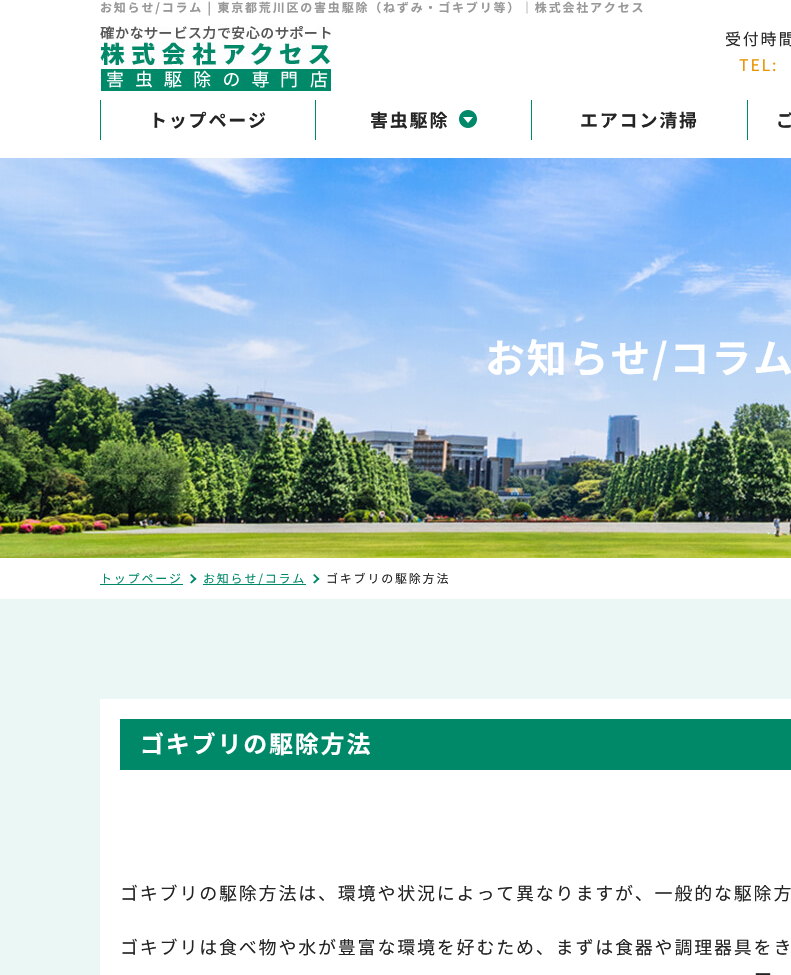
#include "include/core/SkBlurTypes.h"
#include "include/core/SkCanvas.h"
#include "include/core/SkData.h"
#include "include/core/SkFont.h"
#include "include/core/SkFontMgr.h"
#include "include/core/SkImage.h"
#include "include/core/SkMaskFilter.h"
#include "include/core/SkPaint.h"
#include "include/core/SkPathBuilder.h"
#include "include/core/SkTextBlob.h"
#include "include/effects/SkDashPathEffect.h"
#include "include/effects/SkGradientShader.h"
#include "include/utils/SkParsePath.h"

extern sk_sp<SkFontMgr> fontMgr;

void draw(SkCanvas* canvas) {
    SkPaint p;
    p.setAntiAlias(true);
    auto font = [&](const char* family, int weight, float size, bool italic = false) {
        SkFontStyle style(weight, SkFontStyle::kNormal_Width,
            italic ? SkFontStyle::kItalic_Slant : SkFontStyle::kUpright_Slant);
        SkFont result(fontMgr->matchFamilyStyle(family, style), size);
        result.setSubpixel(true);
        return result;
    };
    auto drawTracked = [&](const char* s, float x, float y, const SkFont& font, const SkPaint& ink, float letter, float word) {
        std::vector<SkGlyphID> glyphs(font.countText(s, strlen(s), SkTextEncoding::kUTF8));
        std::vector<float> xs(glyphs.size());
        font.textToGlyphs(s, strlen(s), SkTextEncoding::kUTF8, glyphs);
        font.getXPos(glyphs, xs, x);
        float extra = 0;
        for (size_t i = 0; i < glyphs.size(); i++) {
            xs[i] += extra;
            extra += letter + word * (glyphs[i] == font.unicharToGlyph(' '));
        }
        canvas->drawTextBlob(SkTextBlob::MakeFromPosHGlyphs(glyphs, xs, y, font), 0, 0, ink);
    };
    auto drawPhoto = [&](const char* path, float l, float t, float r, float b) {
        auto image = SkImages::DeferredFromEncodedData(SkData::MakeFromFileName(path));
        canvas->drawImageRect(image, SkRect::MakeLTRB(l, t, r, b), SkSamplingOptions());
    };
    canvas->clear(0xFFFFFFFF);
    auto font1 = font("Noto Sans CJK JP", 700, 12);
    p.setColor(0xFF989898);
    drawTracked("お知らせ/コラム | 東京都荒川区の害虫駆除（ねずみ・ゴキブリ等）｜株式会社アクセス", 100, 12, font1, p, 1.8f, 0);
    drawPhoto("media/1.png", 100, 26, 331, 91);
    auto font2 = font("Noto Sans CJK JP", 400, 16);
    p.setColor(0xFF242424);
    drawTracked("受付時間", 725, 45, font2, p, 1.8f, 0);
    p.setColor(0xFFE99400);
    drawTracked("TEL:", 739, 71, font2, p, 1.8f, 0);
    p.setColor(0xFF008969);
    canvas->drawRect(SkRect::MakeLTRB(315, 100, 316, 140), p);
    canvas->drawRect(SkRect::MakeLTRB(100, 100, 101, 140), p);
    auto font3 = font("Noto Sans CJK JP", 700, 18);
    p.setColor(0xFF242424);
    drawTracked("トップページ", 149, 127, font3, p, 1.8f, 0);
    p.setColor(0xFF008969);
    canvas->drawRect(SkRect::MakeLTRB(531, 100, 532, 140), p);
    p.setColor(0xFF242424);
    drawTracked("害虫駆除", 370, 127, font3, p, 1.8f, 0);
    drawPhoto("media/2.png", 459, 110, 477, 128);
    p.setColor(0xFF008969);
    canvas->drawRect(SkRect::MakeLTRB(747, 100, 748, 140), p);
    p.setColor(0xFF242424);
    drawTracked("エアコン清掃", 580, 127, font3, p, 1.8f, 0);
    drawTracked("ご", 776, 127, font3, p, 1.8f, 0);
    drawPhoto("media/3.png", 0, 158, 791, 558);
    auto font4 = font("Noto Sans CJK JP", 700, 40);
    p.setColor(0xFFFFFFFF);
    drawTracked("お知らせ/コラム", 485, 373, font4, p, 1.8f, 0);
    auto font5 = font("Noto Sans CJK JP", 400, 12);
    p.setColor(0xFF008969);
    drawTracked("トップページ", 100, 583, font5, p, 1.8f, 0);
    canvas->drawRect(SkRect::MakeLTRB(100, 584, 183, 585), p);
    canvas->drawPath(SkPathBuilder().moveTo(191.5f, 574).lineTo(196.5f, 579).lineTo(195, 580).lineTo(190, 575).close().detach(), p);
    canvas->drawPath(SkPathBuilder().moveTo(195, 577.5f).lineTo(196.5f, 579).lineTo(191.5f, 583.5f).lineTo(190, 582.5f).close().detach(), p);
    canvas->drawRect(SkRect::MakeLTRB(203, 584, 306, 585), p);
    drawTracked("お知らせ/コラム", 203, 583, font5, p, 1.8f, 0);
    canvas->drawPath(SkPathBuilder().moveTo(314.5f, 574).lineTo(319.5f, 579).lineTo(318, 580).lineTo(313, 575).close().detach(), p);
    canvas->drawPath(SkPathBuilder().moveTo(318, 577.5f).lineTo(319.5f, 579).lineTo(314.5f, 583.5f).lineTo(313, 582.5f).close().detach(), p);
    p.setColor(0xFF242424);
    drawTracked("ゴキブリの駆除方法", 326, 583, font5, p, 1.8f, 0);
    {
        const struct { float l, t, r, b; SkColor color; } items[] = {
            {0, 599, 791, 975, 0xFFEAF7F4},
            {100, 699, 791, 975, 0xFFFFFFFF},
            {120, 719, 791, 770, 0xFF008969},
        };
        for (auto [l, t, r, b, color] : items) {
            p.setColor(color);
            canvas->drawRect(SkRect::MakeLTRB(l, t, r, b), p);
        }
    }
    auto font6 = font("Noto Sans CJK JP", 700, 24);
    p.setColor(0xFFFFFFFF);
    drawTracked("ゴキブリの駆除方法", 140, 753, font6, p, 1.8f, 0);
    auto font7 = font("Noto Sans CJK JP", 400, 18);
    p.setColor(0xFF242424);
    {
        const struct { const char* s; float x, y; } items[] = {
            {"ゴキブリの駆除方法は、環境や状況によって異なりますが、一般的な駆除方", 120, 900},
            {"ゴキブリは食べ物や水が豊富な環境を好むため、まずは食器や調理器具をき", 120, 954},
            {"ー", 754, 981},
        };
        for (auto [s, x, y] : items) {
            drawTracked(s, x, y, font7, p, 1.8f, 0);
        }
    }
}
